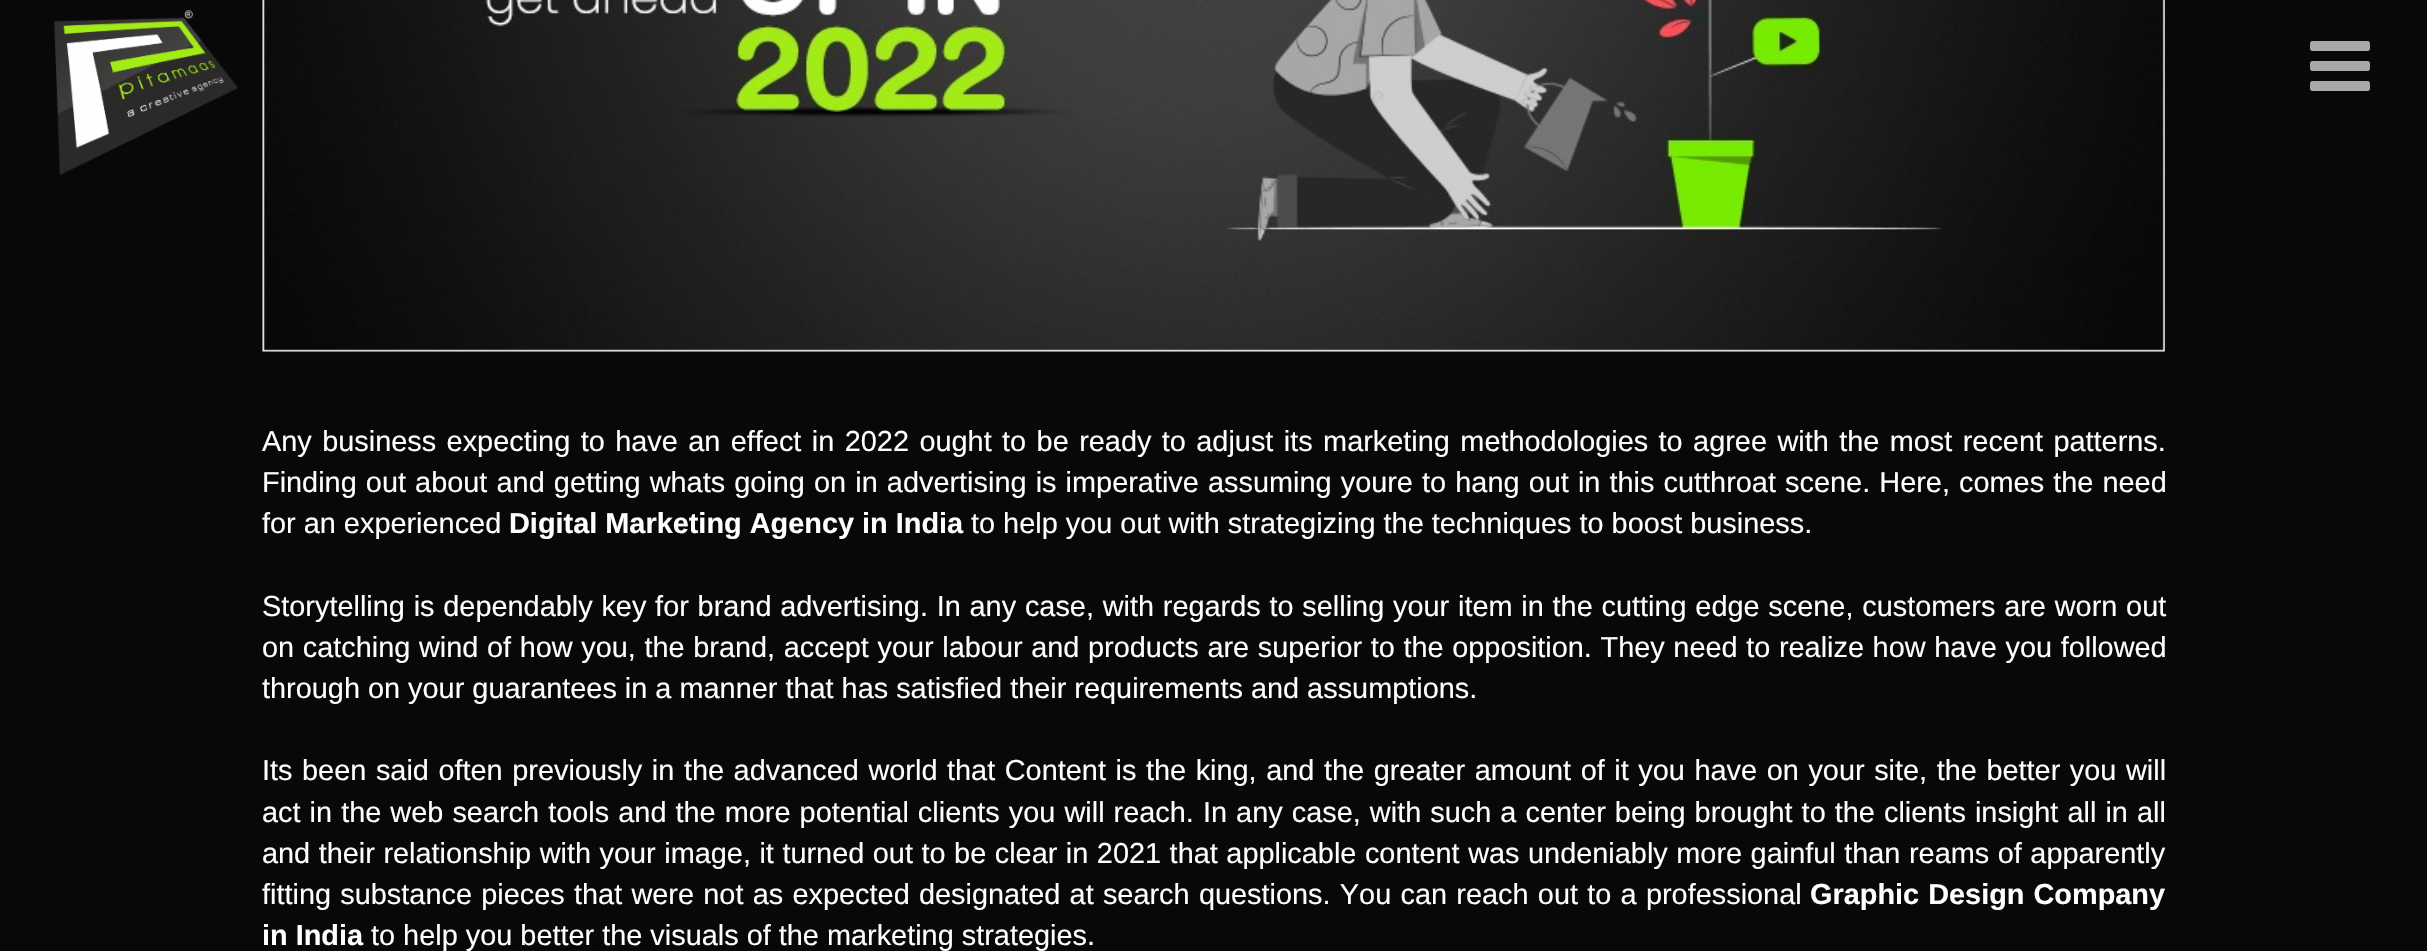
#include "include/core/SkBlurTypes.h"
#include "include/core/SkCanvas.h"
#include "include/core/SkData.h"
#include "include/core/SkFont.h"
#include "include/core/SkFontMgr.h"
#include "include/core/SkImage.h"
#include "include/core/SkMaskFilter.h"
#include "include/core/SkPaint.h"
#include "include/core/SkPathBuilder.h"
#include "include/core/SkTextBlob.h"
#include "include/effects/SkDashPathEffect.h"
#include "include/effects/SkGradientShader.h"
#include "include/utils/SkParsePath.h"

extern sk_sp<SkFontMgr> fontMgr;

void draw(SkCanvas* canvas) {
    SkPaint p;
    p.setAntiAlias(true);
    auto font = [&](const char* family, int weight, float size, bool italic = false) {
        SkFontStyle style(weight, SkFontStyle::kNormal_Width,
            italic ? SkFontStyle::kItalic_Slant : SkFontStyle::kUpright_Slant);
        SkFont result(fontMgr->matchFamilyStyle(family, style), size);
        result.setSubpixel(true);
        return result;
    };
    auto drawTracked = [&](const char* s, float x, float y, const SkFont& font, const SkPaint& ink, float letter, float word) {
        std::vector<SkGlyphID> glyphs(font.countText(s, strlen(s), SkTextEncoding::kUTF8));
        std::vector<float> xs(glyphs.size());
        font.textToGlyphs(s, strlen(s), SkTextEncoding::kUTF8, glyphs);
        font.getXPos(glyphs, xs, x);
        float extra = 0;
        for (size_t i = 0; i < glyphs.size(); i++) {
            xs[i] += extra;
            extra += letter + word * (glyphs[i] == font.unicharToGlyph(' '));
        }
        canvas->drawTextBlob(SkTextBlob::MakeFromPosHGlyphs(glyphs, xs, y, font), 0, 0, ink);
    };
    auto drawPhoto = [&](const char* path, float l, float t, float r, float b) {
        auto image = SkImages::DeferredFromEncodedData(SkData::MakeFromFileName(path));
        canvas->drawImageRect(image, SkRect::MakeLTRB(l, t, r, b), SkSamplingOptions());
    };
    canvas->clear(0xFF080808);
    drawPhoto("media/1.png", 54, 10, 238, 175);
    drawPhoto("media/2.png", 2310, 41, 2370, 91);
    drawPhoto("media/3.png", 262, 0, 2165, 352);
    auto font1 = font("Liberation Sans", 400, 28.88f);
    p.setColor(0xFFFFFFFF);
    drawTracked("Any business expecting to have an effect in 2022 ought to be ready to adjust its marketing methodologies to agree with the most recent patterns.", 262, 451, font1, p, 0, 2.4f);
    drawTracked("Finding out about and getting whats going on in advertising is imperative assuming youre to hang out in this cutthroat scene. Here, comes the need", 262, 492, font1, p, 0, 1.1f);
    canvas->drawString("for an experienced", 262, 533, font1, p);
    auto font2 = font("Liberation Sans", 700, 28.88f);
    canvas->drawString("Digital Marketing Agency in India", 509, 533, font2, p);
    canvas->drawString("to help you out with strategizing the techniques to boost business.", 971, 533, font1, p);
    drawTracked("Storytelling is dependably key for brand advertising. In any case, with regards to selling your item in the cutting edge scene, customers are worn out", 262, 616, font1, p, 0, 0.75f);
    drawTracked("on catching wind of how you, the brand, accept your labour and products are superior to the opposition. They need to realize how have you followed", 262, 657, font1, p, 0, 0.6f);
    canvas->drawString("through on your guarantees in a manner that has satisfied their requirements and assumptions.", 262, 698, font1, p);
    drawTracked("Its been said often previously in the advanced world that Content is the king, and the greater amount of it you have on your site, the better you will", 262, 780, font1, p, 0, 1.55f);
    drawTracked("act in the web search tools and the more potential clients you will reach. In any case, with such a center being brought to the clients insight all in all", 262, 822, font1, p, 0, 1.05f);
    drawTracked("and their relationship with your image, it turned out to be clear in 2021 that applicable content was undeniably more gainful than reams of apparently", 262, 863, font1, p, 0, 0.5f);
    drawTracked("fitting substance pieces that were not as expected designated at search questions. You can reach out to a professional", 262, 904, font1, p, 0, 1.25f);
    drawTracked("Graphic Design Company", 1810, 904, font2, p, 0, 1);
    canvas->drawString("in India", 262, 945, font2, p);
    canvas->drawString("to help you better the visuals of the marketing strategies.", 371, 945, font1, p);
}
